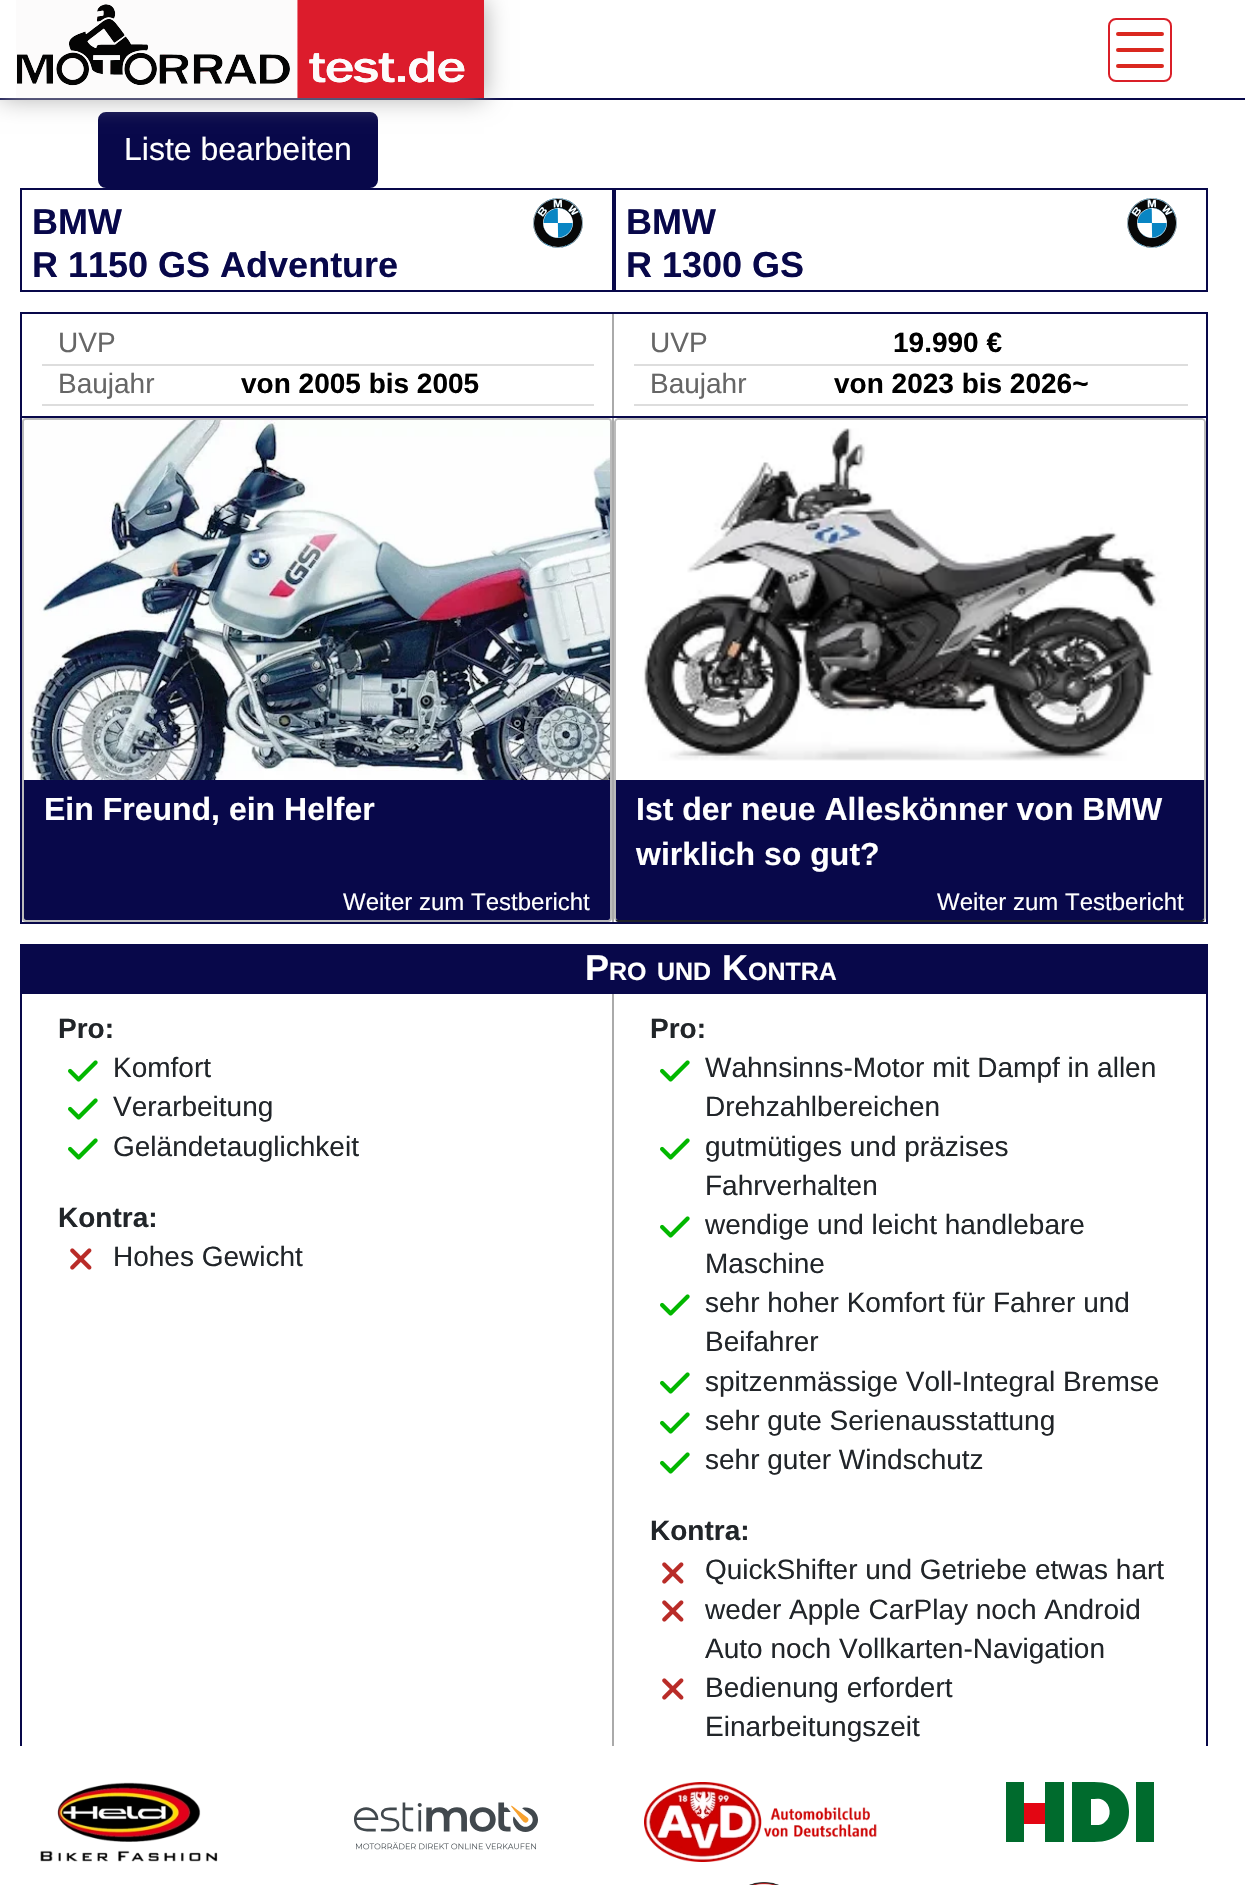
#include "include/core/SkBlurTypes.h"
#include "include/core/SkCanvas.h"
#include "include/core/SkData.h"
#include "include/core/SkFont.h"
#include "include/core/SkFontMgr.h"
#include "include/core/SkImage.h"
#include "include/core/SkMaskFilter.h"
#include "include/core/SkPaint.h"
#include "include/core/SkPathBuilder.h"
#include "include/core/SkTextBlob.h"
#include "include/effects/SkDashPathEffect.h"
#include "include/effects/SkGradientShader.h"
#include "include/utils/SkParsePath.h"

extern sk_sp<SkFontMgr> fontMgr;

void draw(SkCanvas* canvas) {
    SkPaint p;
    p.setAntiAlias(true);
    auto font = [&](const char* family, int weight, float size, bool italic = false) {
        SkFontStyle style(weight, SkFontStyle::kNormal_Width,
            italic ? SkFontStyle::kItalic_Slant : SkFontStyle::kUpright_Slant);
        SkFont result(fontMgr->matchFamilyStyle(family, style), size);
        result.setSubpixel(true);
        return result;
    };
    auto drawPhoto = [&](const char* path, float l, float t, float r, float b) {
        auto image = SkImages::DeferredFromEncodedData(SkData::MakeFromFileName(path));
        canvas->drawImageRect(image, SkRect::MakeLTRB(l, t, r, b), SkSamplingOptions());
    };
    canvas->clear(0xFFFFFFFF);
    p.setColor(0xFF08084A);
    canvas->drawRect(SkRect::MakeLTRB(0, 98, 1245, 100), p);
    canvas->drawRoundRect(SkRect::MakeLTRB(99, 113, 377, 187), 7, 7, p);
    p.setStyle(SkPaint::kStroke_Style);
    p.setStrokeWidth(2);
    canvas->drawRoundRect(SkRect::MakeLTRB(99, 113, 377, 187), 7, 7, p);
    canvas->save();
    canvas->clipPath(SkPathBuilder(SkPathFillType::kEvenOdd).moveTo(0, 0).lineTo(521, 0).lineTo(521, 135).lineTo(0, 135).close().moveTo(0, 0).lineTo(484, 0).lineTo(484, 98).lineTo(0, 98).close().detach(), true);
    p.setStyle(SkPaint::kFill_Style);
    p.setColor(0xFFAAAAAA);
    p.setMaskFilter(SkMaskFilter::MakeBlur(kNormal_SkBlurStyle, 12));
    canvas->drawRect(SkRect::MakeLTRB(0, 0, 484, 98), p);
    p.setMaskFilter(nullptr);
    canvas->restore();
    drawPhoto("media/1.png", 16, 0, 484, 98);
    p.setStyle(SkPaint::kStroke_Style);
    p.setColor(0xFFDA1F28);
    canvas->drawRoundRect(SkRect::MakeLTRB(1109, 19, 1171, 81), 7, 7, p);
    p.setStrokeWidth(4);
    p.setStrokeCap(SkPaint::kRound_Cap);
    p.setColor(0xFFDA281F);
    canvas->drawPath(SkPathBuilder().moveTo(1118, 34).lineTo(1162, 34).moveTo(1118, 50).lineTo(1162, 50).moveTo(1118, 66).lineTo(1162, 66).detach(), p);
    auto font1 = font("Liberation Sans", 400, 32);
    p.setStyle(SkPaint::kFill_Style);
    p.setColor(0xFFFFFFFF);
    canvas->drawString("Liste bearbeiten", 124, 160, font1, p);
    p.setStyle(SkPaint::kStroke_Style);
    p.setStrokeWidth(2);
    p.setStrokeCap(SkPaint::kButt_Cap);
    p.setColor(0xFF08084A);
    canvas->drawRect(SkRect::MakeLTRB(21, 189, 613, 291), p);
    auto font2 = font("Liberation Sans", 700, 36);
    p.setStyle(SkPaint::kFill_Style);
    canvas->drawString("BMW", 32, 234, font2, p);
    canvas->drawString("R 1150 GS Adventure", 32, 277, font2, p);
    drawPhoto("media/2.png", 533, 198, 583, 248);
    p.setStyle(SkPaint::kStroke_Style);
    canvas->drawRect(SkRect::MakeLTRB(615, 189, 1207, 291), p);
    p.setStyle(SkPaint::kFill_Style);
    canvas->drawString("BMW", 626, 234, font2, p);
    canvas->drawString("R 1300 GS", 626, 277, font2, p);
    drawPhoto("media/2.png", 1127, 198, 1177, 248);
    {
        const struct { float l, t, r, b; SkColor color; } items[] = {
            {20, 312, 1208, 314, 0xFF08084A},
            {1206, 312, 1208, 416, 0xFF08084A},
            {20, 312, 22, 416, 0xFF08084A},
            {612, 314, 614, 416, 0xFFAAAAAA},
        };
        for (auto [l, t, r, b, color] : items) {
            p.setColor(color);
            canvas->drawRect(SkRect::MakeLTRB(l, t, r, b), p);
        }
    }
    auto font3 = font("Liberation Sans", 400, 28);
    p.setColor(0xFF666666);
    canvas->drawString("UVP", 58, 352, font3, p);
    p.setColor(0xFFDDDDDD);
    canvas->drawRect(SkRect::MakeLTRB(42, 364, 594, 366), p);
    p.setColor(0xFF666666);
    canvas->drawString("Baujahr", 58, 393, font3, p);
    p.setColor(0xFFDDDDDD);
    canvas->drawRect(SkRect::MakeLTRB(42, 404, 594, 406), p);
    auto font4 = font("Liberation Sans", 700, 28);
    p.setColor(0xFF000000);
    canvas->drawString("von 2005 bis 2005", 241, 393, font4, p);
    p.setColor(0xFF666666);
    canvas->drawString("UVP", 650, 352, font3, p);
    p.setColor(0xFF000000);
    canvas->drawString("19.990 €", 893, 352, font4, p);
    p.setColor(0xFFDDDDDD);
    canvas->drawRect(SkRect::MakeLTRB(634, 364, 1188, 366), p);
    p.setColor(0xFF666666);
    canvas->drawString("Baujahr", 650, 393, font3, p);
    p.setColor(0xFFDDDDDD);
    canvas->drawRect(SkRect::MakeLTRB(634, 404, 1188, 406), p);
    p.setColor(0xFF000000);
    canvas->drawString("von 2023 bis 2026~", 834, 393, font4, p);
    p.setStyle(SkPaint::kStroke_Style);
    p.setColor(0xFF08084A);
    canvas->drawRect(SkRect::MakeLTRB(21, 417, 1207, 923), p);
    p.setStyle(SkPaint::kFill_Style);
    p.setColor(0xFFAAAAAA);
    canvas->drawRect(SkRect::MakeLTRB(612, 418, 614, 922), p);
    p.setStyle(SkPaint::kStroke_Style);
    p.setColor(0xFFBBBBBB);
    canvas->drawRoundRect(SkRect::MakeLTRB(23, 419, 611, 921), 3, 3, p);
    drawPhoto("media/3.png", 24, 420, 610, 780);
    p.setStyle(SkPaint::kFill_Style);
    p.setColor(0xFF08084A);
    canvas->drawRect(SkRect::MakeLTRB(24, 780, 610, 886), p);
    auto font5 = font("Liberation Sans", 700, 32);
    p.setColor(0xFFFFFFFF);
    canvas->drawString("Ein Freund, ein Helfer", 44, 820, font5, p);
    p.setColor(0xFF08084A);
    canvas->drawPath(SkPathBuilder().moveTo(24, 886).lineTo(610, 886).lineTo(610, 918).cubicTo(610, 919, 609, 920, 608, 920).lineTo(26, 920).cubicTo(25, 920, 24, 919, 24, 918).close().detach(), p);
    auto font6 = font("Liberation Sans", 400, 24);
    p.setColor(0xFFFFFFFF);
    canvas->drawString("Weiter zum Testbericht", 343, 910, font6, p);
    p.setStyle(SkPaint::kStroke_Style);
    p.setColor(0xFF212529);
    canvas->drawPath(SkPathBuilder().moveTo(1204, 920).lineTo(1202, 921).lineTo(618, 921).lineTo(616, 920).detach(), p);
    p.setColor(0xFFBBBBBB);
    canvas->drawPath(SkPathBuilder().moveTo(616, 920).lineTo(615, 918).lineTo(615, 422).lineTo(616, 420).lineTo(618, 419).lineTo(1202, 419).lineTo(1204, 420).lineTo(1205, 422).lineTo(1205, 918).lineTo(1204, 920).detach(), p);
    drawPhoto("media/4.png", 616, 420, 1204, 761);
    p.setStyle(SkPaint::kFill_Style);
    p.setColor(0xFF08084A);
    canvas->drawRect(SkRect::MakeLTRB(616, 780, 1204, 886), p);
    p.setColor(0xFFFFFFFF);
    canvas->drawString("Ist der neue Alleskönner von BMW", 636, 820, font5, p);
    canvas->drawString("wirklich so gut?", 636, 865, font5, p);
    p.setColor(0xFF08084A);
    canvas->drawPath(SkPathBuilder().moveTo(616, 886).lineTo(1204, 886).lineTo(1204, 918).cubicTo(1204, 919, 1203, 920, 1202, 920).lineTo(618, 920).cubicTo(617, 920, 616, 919, 616, 918).close().detach(), p);
    p.setColor(0xFFFFFFFF);
    canvas->drawString("Weiter zum Testbericht", 937, 910, font6, p);
    p.setColor(0xFF08084A);
    canvas->drawRect(SkRect::MakeLTRB(20, 944, 1208, 992), p);
    p.setColor(0xFFFFFFFF);
    canvas->drawString("P", 585, 980, font2, p);
    auto font7 = font("Liberation Sans", 700, 25);
    canvas->drawString("RO", 609, 980, font7, p);
    canvas->drawString("UND", 657, 980, font7, p);
    canvas->drawString("K", 722, 980, font2, p);
    canvas->drawString("ONTRA", 748, 980, font7, p);
    canvas->save();
    canvas->clipRect(SkRect::MakeLTRB(12, 112, 1216, 1746));
    p.setStyle(SkPaint::kStroke_Style);
    p.setColor(0xFF08084A);
    canvas->drawRect(SkRect::MakeLTRB(21, 993, 1207, 1773), p);
    canvas->restore();
    p.setStyle(SkPaint::kFill_Style);
    p.setColor(0xFFAAAAAA);
    canvas->drawRect(SkRect::MakeLTRB(612, 994, 614, 1746), p);
    p.setColor(0xFF212529);
    canvas->drawString("Pro:", 58, 1038, font4, p);
    drawPhoto("media/5.png", 68, 1060, 98, 1082);
    canvas->drawString("Komfort", 113, 1077, font3, p);
    drawPhoto("media/5.png", 68, 1098, 98, 1120);
    canvas->drawString("Verarbeitung", 113, 1116, font3, p);
    drawPhoto("media/5.png", 68, 1138, 98, 1160);
    canvas->drawString("Geländetauglichkeit", 113, 1156, font3, p);
    canvas->drawString("Kontra:", 58, 1227, font4, p);
    drawPhoto("media/6.png", 70, 1248, 92, 1270);
    canvas->drawString("Hohes Gewicht", 113, 1266, font3, p);
    canvas->drawString("Pro:", 650, 1038, font4, p);
    drawPhoto("media/5.png", 660, 1060, 690, 1082);
    canvas->drawString("Wahnsinns-Motor mit Dampf in allen", 705, 1077, font3, p);
    canvas->drawString("Drehzahlbereichen", 705, 1116, font3, p);
    drawPhoto("media/5.png", 660, 1138, 690, 1160);
    canvas->drawString("gutmütiges und präzises", 705, 1156, font3, p);
    canvas->drawString("Fahrverhalten", 705, 1195, font3, p);
    drawPhoto("media/5.png", 660, 1216, 690, 1238);
    canvas->drawString("wendige und leicht handlebare", 705, 1234, font3, p);
    canvas->drawString("Maschine", 705, 1273, font3, p);
    drawPhoto("media/5.png", 660, 1294, 690, 1316);
    canvas->drawString("sehr hoher Komfort für Fahrer und", 705, 1312, font3, p);
    canvas->drawString("Beifahrer", 705, 1351, font3, p);
    drawPhoto("media/5.png", 660, 1372, 690, 1394);
    canvas->drawString("spitzenmässige Voll-Integral Bremse", 705, 1391, font3, p);
    drawPhoto("media/5.png", 660, 1412, 690, 1434);
    canvas->drawString("sehr gute Serienausstattung", 705, 1430, font3, p);
    drawPhoto("media/5.png", 660, 1452, 690, 1474);
    canvas->drawString("sehr guter Windschutz", 705, 1469, font3, p);
    canvas->drawString("Kontra:", 650, 1540, font4, p);
    drawPhoto("media/6.png", 662, 1562, 684, 1584);
    canvas->drawString("QuickShifter und Getriebe etwas hart", 705, 1579, font3, p);
    drawPhoto("media/6.png", 662, 1600, 684, 1622);
    canvas->drawString("weder Apple CarPlay noch Android", 705, 1619, font3, p);
    canvas->drawString("Auto noch Vollkarten-Navigation", 705, 1658, font3, p);
    drawPhoto("media/6.png", 662, 1678, 684, 1700);
    canvas->drawString("Bedienung erfordert", 705, 1697, font3, p);
    canvas->drawString("Einarbeitungszeit", 705, 1736, font3, p);
    drawPhoto("media/7.png", 40, 1782, 218, 1862);
    drawPhoto("media/8.png", 354, 1802, 538, 1850);
    drawPhoto("media/9.png", 644, 1782, 877, 1862);
    {
        const struct { float l, t, r, b; SkColor color; } items[] = {
            {1006, 1782, 1024, 1842, 0xFF006B2D},
            {1024, 1803, 1045, 1824, 0xFFE30613},
            {1045, 1782, 1064, 1842, 0xFF006B2D},
        };
        for (auto [l, t, r, b, color] : items) {
            p.setColor(color);
            canvas->drawRect(SkRect::MakeLTRB(l, t, r, b), p);
        }
    }
    canvas->drawPath(SkPathBuilder().moveTo(1091, 1825).lineTo(1091, 1799).cubicTo(1095, 1799, 1100, 1798, 1103, 1800).cubicTo(1111, 1804, 1112, 1817, 1105, 1822).cubicTo(1102, 1826, 1096, 1825, 1091, 1825).close().moveTo(1072, 1842).lineTo(1094, 1842).cubicTo(1117, 1842, 1129, 1829, 1129, 1812).lineTo(1129, 1811).cubicTo(1129, 1794, 1118, 1782, 1094, 1782).lineTo(1072, 1782).close().detach(), p);
    canvas->drawRect(SkRect::MakeLTRB(1136, 1782, 1154, 1842), p);
    drawPhoto("media/10.png", 749, 1882, 779, 1885);
}
